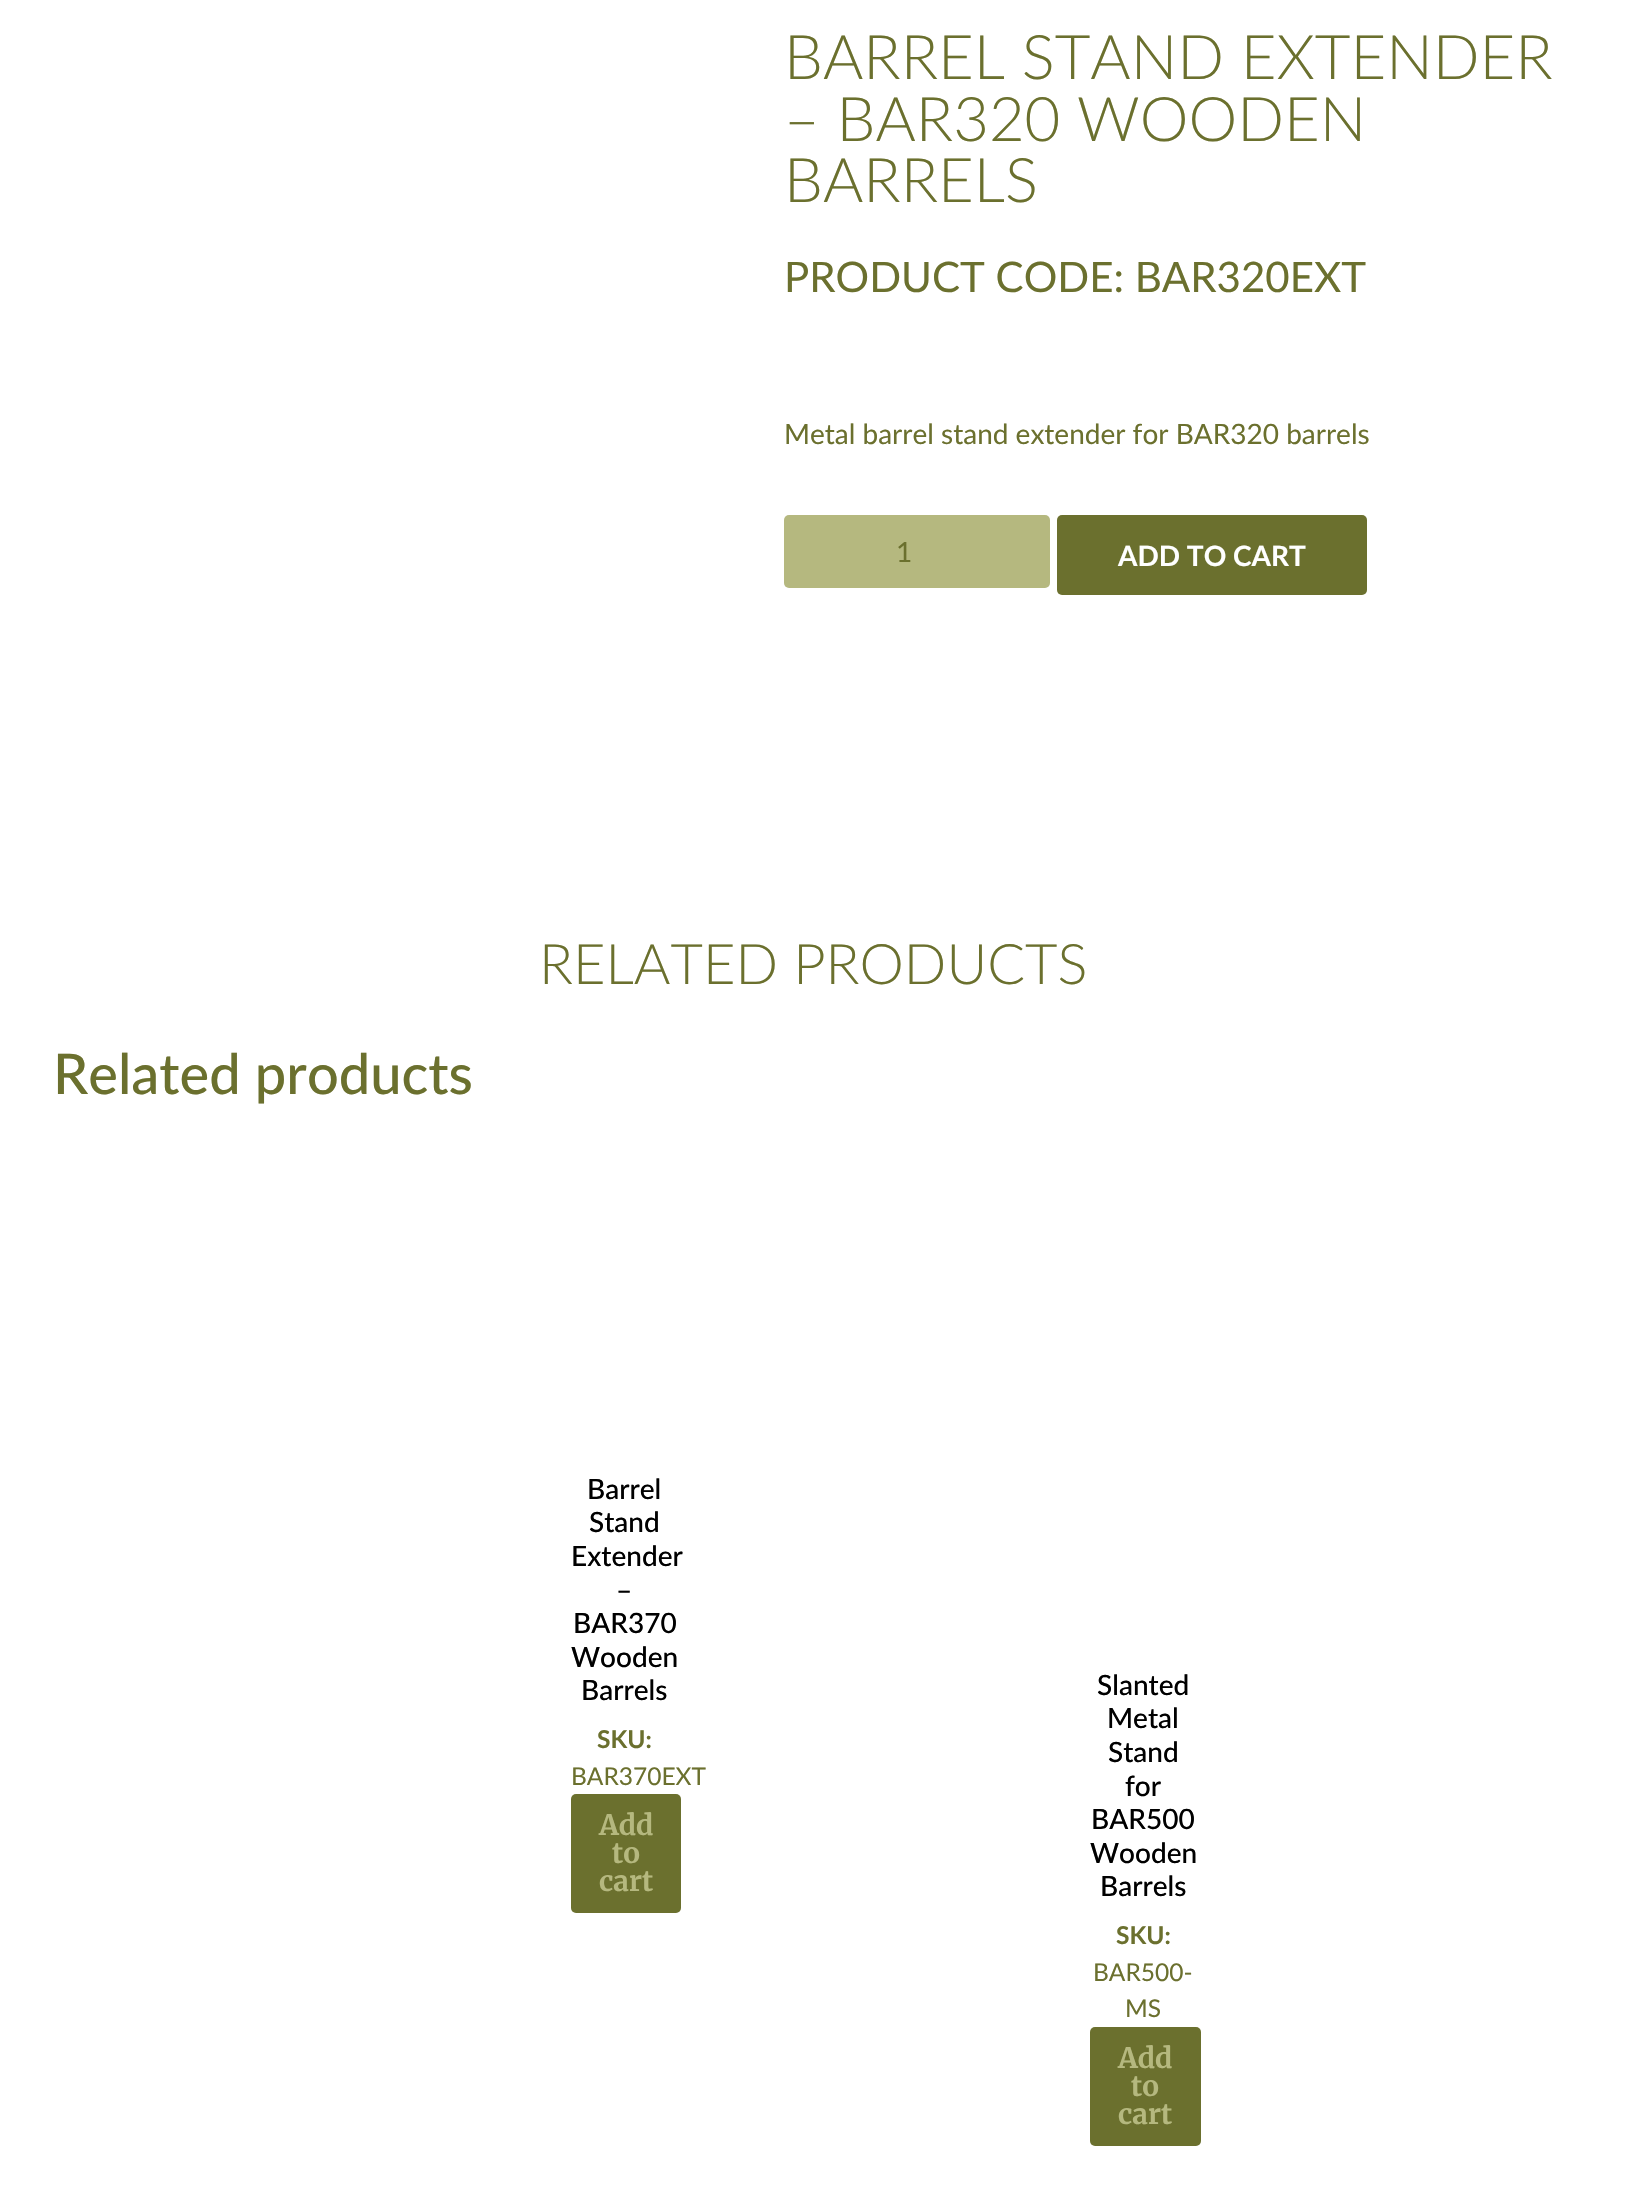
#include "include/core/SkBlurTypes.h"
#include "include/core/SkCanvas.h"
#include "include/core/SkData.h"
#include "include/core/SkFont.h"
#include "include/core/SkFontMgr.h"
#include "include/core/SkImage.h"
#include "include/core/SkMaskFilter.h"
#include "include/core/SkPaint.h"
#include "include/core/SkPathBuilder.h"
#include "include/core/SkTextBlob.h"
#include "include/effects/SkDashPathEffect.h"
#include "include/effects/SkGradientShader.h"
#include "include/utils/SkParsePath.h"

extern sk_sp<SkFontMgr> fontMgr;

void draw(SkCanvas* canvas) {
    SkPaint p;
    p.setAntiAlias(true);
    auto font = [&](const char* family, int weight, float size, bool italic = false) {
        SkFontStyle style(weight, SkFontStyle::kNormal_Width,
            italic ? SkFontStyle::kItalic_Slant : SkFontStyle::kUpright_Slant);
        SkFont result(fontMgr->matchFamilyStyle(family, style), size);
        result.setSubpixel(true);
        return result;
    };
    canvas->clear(0xFFFFFFFF);
    auto font1 = font("Lato", 300, 61.6f);
    p.setColor(0xFF6B702E);
    {
        const struct { const char* s; float x, y; } items[] = {
            {"BARREL STAND EXTENDER", 784, 79},
            {"– BAR320 WOODEN", 784, 141},
            {"BARRELS", 784, 202},
        };
        for (auto [s, x, y] : items) {
            canvas->drawString(s, x, y, font1, p);
        }
    }
    auto font2 = font("Lato", 400, 42);
    canvas->drawString("PRODUCT CODE: BAR320EXT", 784, 292, font2, p);
    auto font3 = font("Lato", 400, 28);
    canvas->drawString("Metal barrel stand extender for BAR320 barrels", 784, 444, font3, p);
    p.setColor(0xFFB5B87F);
    canvas->drawRoundRect(SkRect::MakeLTRB(784, 515, 1050, 588), 5, 5, p);
    p.setColor(0xFF6B702E);
    canvas->drawString("1", 896, 562, font3, p);
    canvas->drawRoundRect(SkRect::MakeLTRB(1057, 515, 1367, 595), 5, 5, p);
    auto font4 = font("Lato", 700, 28);
    p.setColor(0xFFFFFFFF);
    canvas->drawString("ADD TO CART", 1118, 566, font4, p);
    auto font5 = font("Lato", 300, 56);
    p.setColor(0xFF6B702E);
    canvas->drawString("RELATED PRODUCTS", 539, 984, font5, p);
    auto font6 = font("Lato", 500, 56);
    canvas->drawString("Related products", 53, 1094, font6, p);
    auto font7 = font("Lato", 500, 28);
    p.setColor(0xFF000000);
    {
        const struct { const char* s; float x, y; } items[] = {
            {"Barrel", 587, 1499},
            {"Stand", 589, 1532},
            {"Extender", 571, 1566},
            {"–", 616, 1600},
            {"BAR370", 573, 1633},
            {"Wooden", 571, 1667},
            {"Barrels", 581, 1700},
        };
        for (auto [s, x, y] : items) {
            canvas->drawString(s, x, y, font7, p);
        }
    }
    auto font8 = font("Lato", 700, 24.5f);
    p.setColor(0xFF6B702E);
    canvas->drawString("SKU:", 597, 1748, font8, p);
    auto font9 = font("Lato", 400, 24.5f);
    canvas->drawString("BAR370EXT", 571, 1785, font9, p);
    canvas->drawRoundRect(SkRect::MakeLTRB(571, 1794, 681, 1913), 5, 5, p);
    auto font10 = font("Merriweather", 700, 28);
    p.setColor(0xFFB5B87F);
    {
        const struct { const char* s; float x, y; } items[] = {
            {"Add", 599, 1835},
            {"to", 612, 1863},
            {"cart", 599, 1891},
        };
        for (auto [s, x, y] : items) {
            canvas->drawString(s, x, y, font10, p);
        }
    }
    p.setColor(0xFF000000);
    {
        const struct { const char* s; float x, y; } items[] = {
            {"Slanted", 1097, 1695},
            {"Metal", 1107, 1728},
            {"Stand", 1108, 1762},
            {"for", 1125, 1796},
            {"BAR500", 1091, 1829},
            {"Wooden", 1090, 1863},
            {"Barrels", 1100, 1896},
        };
        for (auto [s, x, y] : items) {
            canvas->drawString(s, x, y, font7, p);
        }
    }
    p.setColor(0xFF6B702E);
    canvas->drawString("SKU:", 1116, 1944, font8, p);
    canvas->drawString("BAR500-", 1093, 1981, font9, p);
    canvas->drawString("MS", 1125, 2017, font9, p);
    canvas->drawRoundRect(SkRect::MakeLTRB(1090, 2027, 1201, 2146), 5, 5, p);
    p.setColor(0xFFB5B87F);
    {
        const struct { const char* s; float x, y; } items[] = {
            {"Add", 1118, 2068},
            {"to", 1131, 2096},
            {"cart", 1118, 2124},
        };
        for (auto [s, x, y] : items) {
            canvas->drawString(s, x, y, font10, p);
        }
    }
}
